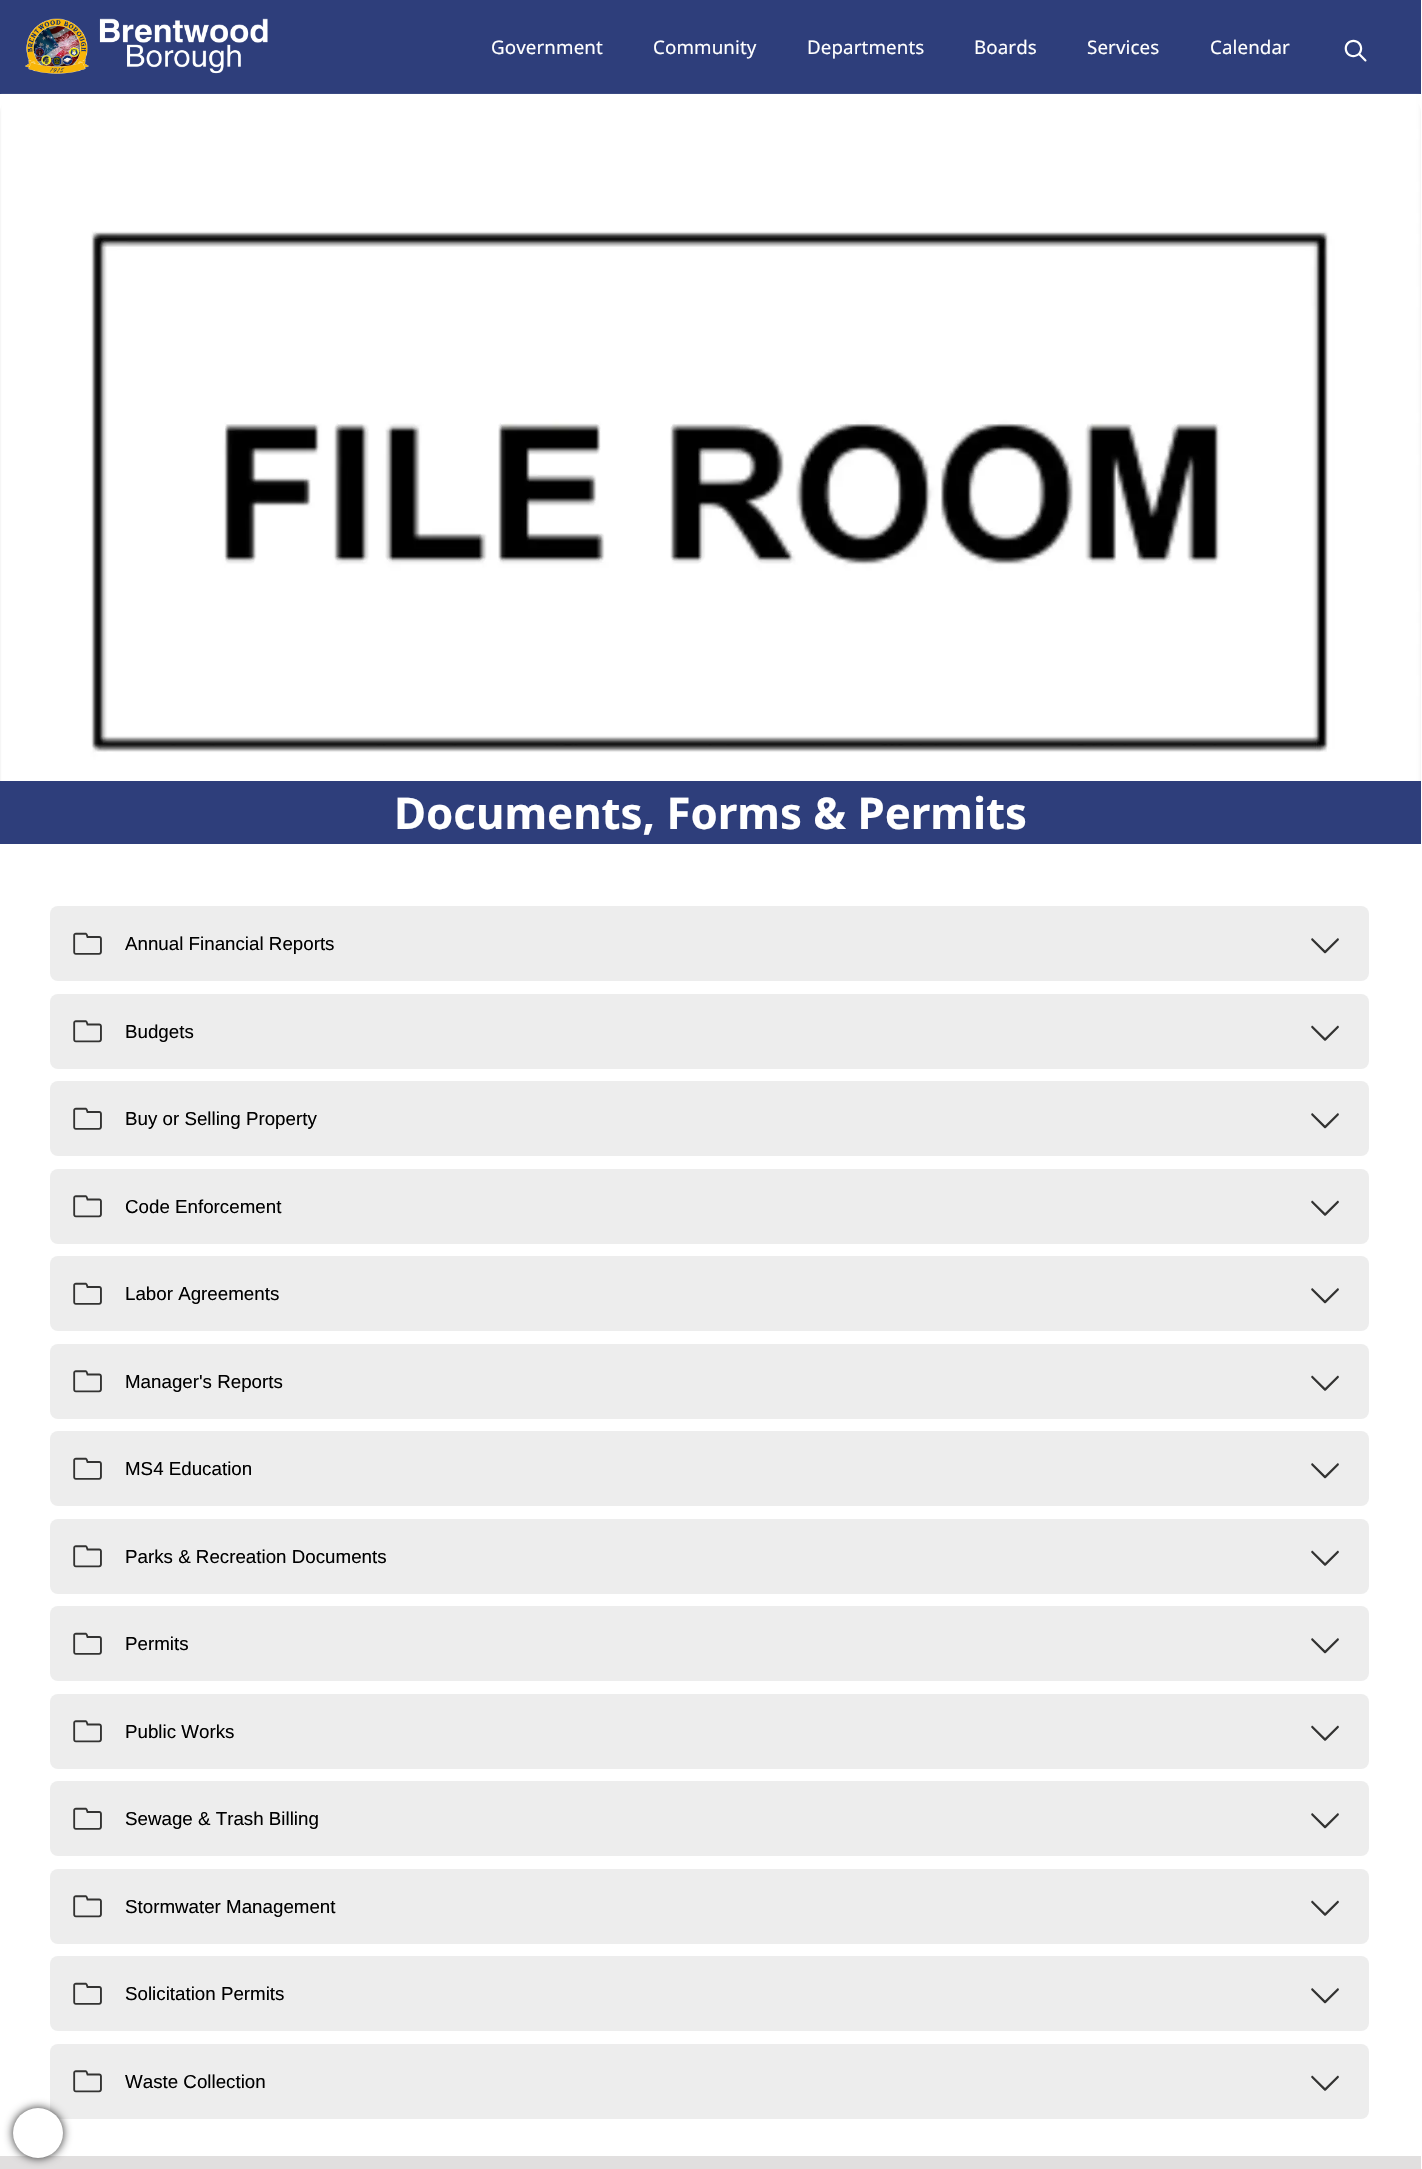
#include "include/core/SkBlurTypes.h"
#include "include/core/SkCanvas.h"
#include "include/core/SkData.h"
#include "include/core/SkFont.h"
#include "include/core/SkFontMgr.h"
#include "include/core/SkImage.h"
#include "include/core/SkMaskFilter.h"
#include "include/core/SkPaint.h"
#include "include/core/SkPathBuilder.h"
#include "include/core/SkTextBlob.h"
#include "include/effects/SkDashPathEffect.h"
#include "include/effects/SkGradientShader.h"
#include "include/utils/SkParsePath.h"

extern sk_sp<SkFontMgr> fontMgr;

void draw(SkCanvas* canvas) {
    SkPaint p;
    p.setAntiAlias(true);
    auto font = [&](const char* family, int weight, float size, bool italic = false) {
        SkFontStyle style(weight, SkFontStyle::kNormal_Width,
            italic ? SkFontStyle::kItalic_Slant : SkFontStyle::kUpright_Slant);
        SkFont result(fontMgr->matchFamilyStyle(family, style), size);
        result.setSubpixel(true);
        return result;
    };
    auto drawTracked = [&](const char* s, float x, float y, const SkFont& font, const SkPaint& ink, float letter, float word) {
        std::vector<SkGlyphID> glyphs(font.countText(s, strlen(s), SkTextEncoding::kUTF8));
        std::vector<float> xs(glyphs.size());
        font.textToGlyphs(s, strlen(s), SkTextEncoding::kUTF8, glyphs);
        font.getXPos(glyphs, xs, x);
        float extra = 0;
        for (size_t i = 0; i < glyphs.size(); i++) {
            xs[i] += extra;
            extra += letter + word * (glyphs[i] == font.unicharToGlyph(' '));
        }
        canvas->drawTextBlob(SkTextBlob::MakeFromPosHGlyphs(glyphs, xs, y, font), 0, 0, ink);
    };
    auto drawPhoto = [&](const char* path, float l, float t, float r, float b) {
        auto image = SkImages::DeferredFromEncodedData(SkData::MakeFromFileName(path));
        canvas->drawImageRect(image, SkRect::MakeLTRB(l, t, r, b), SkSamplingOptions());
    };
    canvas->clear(0xFFFFFFFF);
    p.setColor(0xFF2E3E7B);
    canvas->drawRect(SkRect::MakeLTRB(0, 0, 1421, 94), p);
    drawPhoto("media/1.png", 25, 18, 268, 74);
    auto font1 = font("Noto Sans", 400, 18.75f);
    p.setColor(0xFFFFFFFF);
    {
        const struct { const char* s; float x, y; } items[] = {
            {"Government", 491, 54},
            {"Community", 653, 54},
            {"Departments", 807, 54},
            {"Boards", 974, 54},
            {"Services", 1087, 54},
            {"Calendar", 1210, 54},
        };
        for (auto [s, x, y] : items) {
            drawTracked(s, x, y, font1, p, 0.1f, 0);
        }
    }
    drawPhoto("media/2.png", 1344, 39, 1367, 62);
    p.setColor(0xFFF6F6F6);
    canvas->drawRoundRect(SkRect::MakeLTRB(0, 94, 1421, 844), 19, 19, p);
    drawPhoto("media/3.png", 1, 93, 1420, 781);
    p.setColor(0xFF2E3E7B);
    canvas->drawRect(SkRect::MakeLTRB(0, 781, 1421, 844), p);
    auto font2 = font("Noto Sans", 700, 43.75f);
    p.setColor(0xFFFFFFFF);
    canvas->drawString("Documents, Forms & Permits", 394, 829, font2, p);
    p.setColor(0xFFEDEDED);
    canvas->drawRoundRect(SkRect::MakeLTRB(50, 906, 1369, 981), 8, 8, p);
    drawPhoto("media/4.png", 73, 932, 102, 955);
    auto font3 = font("Liberation Sans", 400, 18.75f);
    p.setColor(0xFF000000);
    canvas->drawString("Annual Financial Reports", 125, 950, font3, p);
    drawPhoto("media/5.png", 1311, 938, 1339, 954);
    p.setColor(0xFFEDEDED);
    canvas->drawRoundRect(SkRect::MakeLTRB(50, 994, 1369, 1069), 8, 8, p);
    drawPhoto("media/6.png", 73, 1020, 102, 1043);
    p.setColor(0xFF000000);
    canvas->drawString("Budgets", 125, 1038, font3, p);
    drawPhoto("media/7.png", 1311, 1025, 1339, 1041);
    p.setColor(0xFFEDEDED);
    canvas->drawRoundRect(SkRect::MakeLTRB(50, 1081, 1369, 1156), 8, 8, p);
    drawPhoto("media/4.png", 73, 1107, 102, 1130);
    p.setColor(0xFF000000);
    canvas->drawString("Buy or Selling Property", 125, 1125, font3, p);
    drawPhoto("media/5.png", 1311, 1113, 1339, 1129);
    p.setColor(0xFFEDEDED);
    canvas->drawRoundRect(SkRect::MakeLTRB(50, 1169, 1369, 1244), 8, 8, p);
    drawPhoto("media/6.png", 73, 1195, 102, 1218);
    p.setColor(0xFF000000);
    canvas->drawString("Code Enforcement", 125, 1213, font3, p);
    drawPhoto("media/8.png", 1311, 1200, 1339, 1216);
    p.setColor(0xFFEDEDED);
    canvas->drawRoundRect(SkRect::MakeLTRB(50, 1256, 1369, 1331), 8, 8, p);
    drawPhoto("media/4.png", 73, 1282, 102, 1305);
    p.setColor(0xFF000000);
    canvas->drawString("Labor Agreements", 125, 1300, font3, p);
    drawPhoto("media/5.png", 1311, 1288, 1339, 1304);
    p.setColor(0xFFEDEDED);
    canvas->drawRoundRect(SkRect::MakeLTRB(50, 1344, 1369, 1419), 8, 8, p);
    drawPhoto("media/6.png", 73, 1370, 102, 1393);
    p.setColor(0xFF000000);
    canvas->drawString("Manager's Reports", 125, 1388, font3, p);
    drawPhoto("media/8.png", 1311, 1375, 1339, 1391);
    p.setColor(0xFFEDEDED);
    canvas->drawRoundRect(SkRect::MakeLTRB(50, 1431, 1369, 1506), 8, 8, p);
    drawPhoto("media/4.png", 73, 1457, 102, 1480);
    p.setColor(0xFF000000);
    canvas->drawString("MS4 Education", 125, 1475, font3, p);
    drawPhoto("media/5.png", 1311, 1463, 1339, 1479);
    p.setColor(0xFFEDEDED);
    canvas->drawRoundRect(SkRect::MakeLTRB(50, 1519, 1369, 1594), 8, 8, p);
    drawPhoto("media/6.png", 73, 1545, 102, 1568);
    p.setColor(0xFF000000);
    canvas->drawString("Parks & Recreation Documents", 125, 1563, font3, p);
    drawPhoto("media/8.png", 1311, 1550, 1339, 1566);
    p.setColor(0xFFEDEDED);
    canvas->drawRoundRect(SkRect::MakeLTRB(50, 1606, 1369, 1681), 8, 8, p);
    drawPhoto("media/4.png", 73, 1632, 102, 1655);
    p.setColor(0xFF000000);
    canvas->drawString("Permits", 125, 1650, font3, p);
    drawPhoto("media/5.png", 1311, 1638, 1339, 1654);
    p.setColor(0xFFEDEDED);
    canvas->drawRoundRect(SkRect::MakeLTRB(50, 1694, 1369, 1769), 8, 8, p);
    drawPhoto("media/6.png", 73, 1720, 102, 1743);
    p.setColor(0xFF000000);
    canvas->drawString("Public Works", 125, 1738, font3, p);
    drawPhoto("media/8.png", 1311, 1725, 1339, 1741);
    p.setColor(0xFFEDEDED);
    canvas->drawRoundRect(SkRect::MakeLTRB(50, 1781, 1369, 1856), 8, 8, p);
    drawPhoto("media/4.png", 73, 1807, 102, 1830);
    p.setColor(0xFF000000);
    canvas->drawString("Sewage & Trash Billing", 125, 1825, font3, p);
    drawPhoto("media/5.png", 1311, 1813, 1339, 1829);
    p.setColor(0xFFEDEDED);
    canvas->drawRoundRect(SkRect::MakeLTRB(50, 1869, 1369, 1944), 8, 8, p);
    drawPhoto("media/6.png", 73, 1895, 102, 1918);
    p.setColor(0xFF000000);
    canvas->drawString("Stormwater Management", 125, 1913, font3, p);
    drawPhoto("media/8.png", 1311, 1900, 1339, 1916);
    p.setColor(0xFFEDEDED);
    canvas->drawRoundRect(SkRect::MakeLTRB(50, 1956, 1369, 2031), 8, 8, p);
    drawPhoto("media/4.png", 73, 1982, 102, 2005);
    p.setColor(0xFF000000);
    canvas->drawString("Solicitation Permits", 125, 2000, font3, p);
    drawPhoto("media/5.png", 1311, 1988, 1339, 2004);
    p.setColor(0xFFEDEDED);
    canvas->drawRoundRect(SkRect::MakeLTRB(50, 2044, 1369, 2119), 8, 8, p);
    drawPhoto("media/6.png", 73, 2070, 102, 2093);
    p.setColor(0xFF000000);
    canvas->drawString("Waste Collection", 125, 2088, font3, p);
    drawPhoto("media/8.png", 1311, 2075, 1339, 2091);
    p.setColor(0xFFE1DFDF);
    canvas->drawRect(SkRect::MakeLTRB(0, 2156, 1421, 2169), p);
    p.setColor(0xFF272727);
    p.setMaskFilter(SkMaskFilter::MakeBlur(kNormal_SkBlurStyle, 5));
    canvas->drawRoundRect(SkRect::MakeLTRB(13, 2108, 63, 2158), 25, 25, p);
    p.setMaskFilter(nullptr);
    p.setColor(0xFFFFFFFF);
    canvas->drawCircle(38, 2133, 25, p);
}
